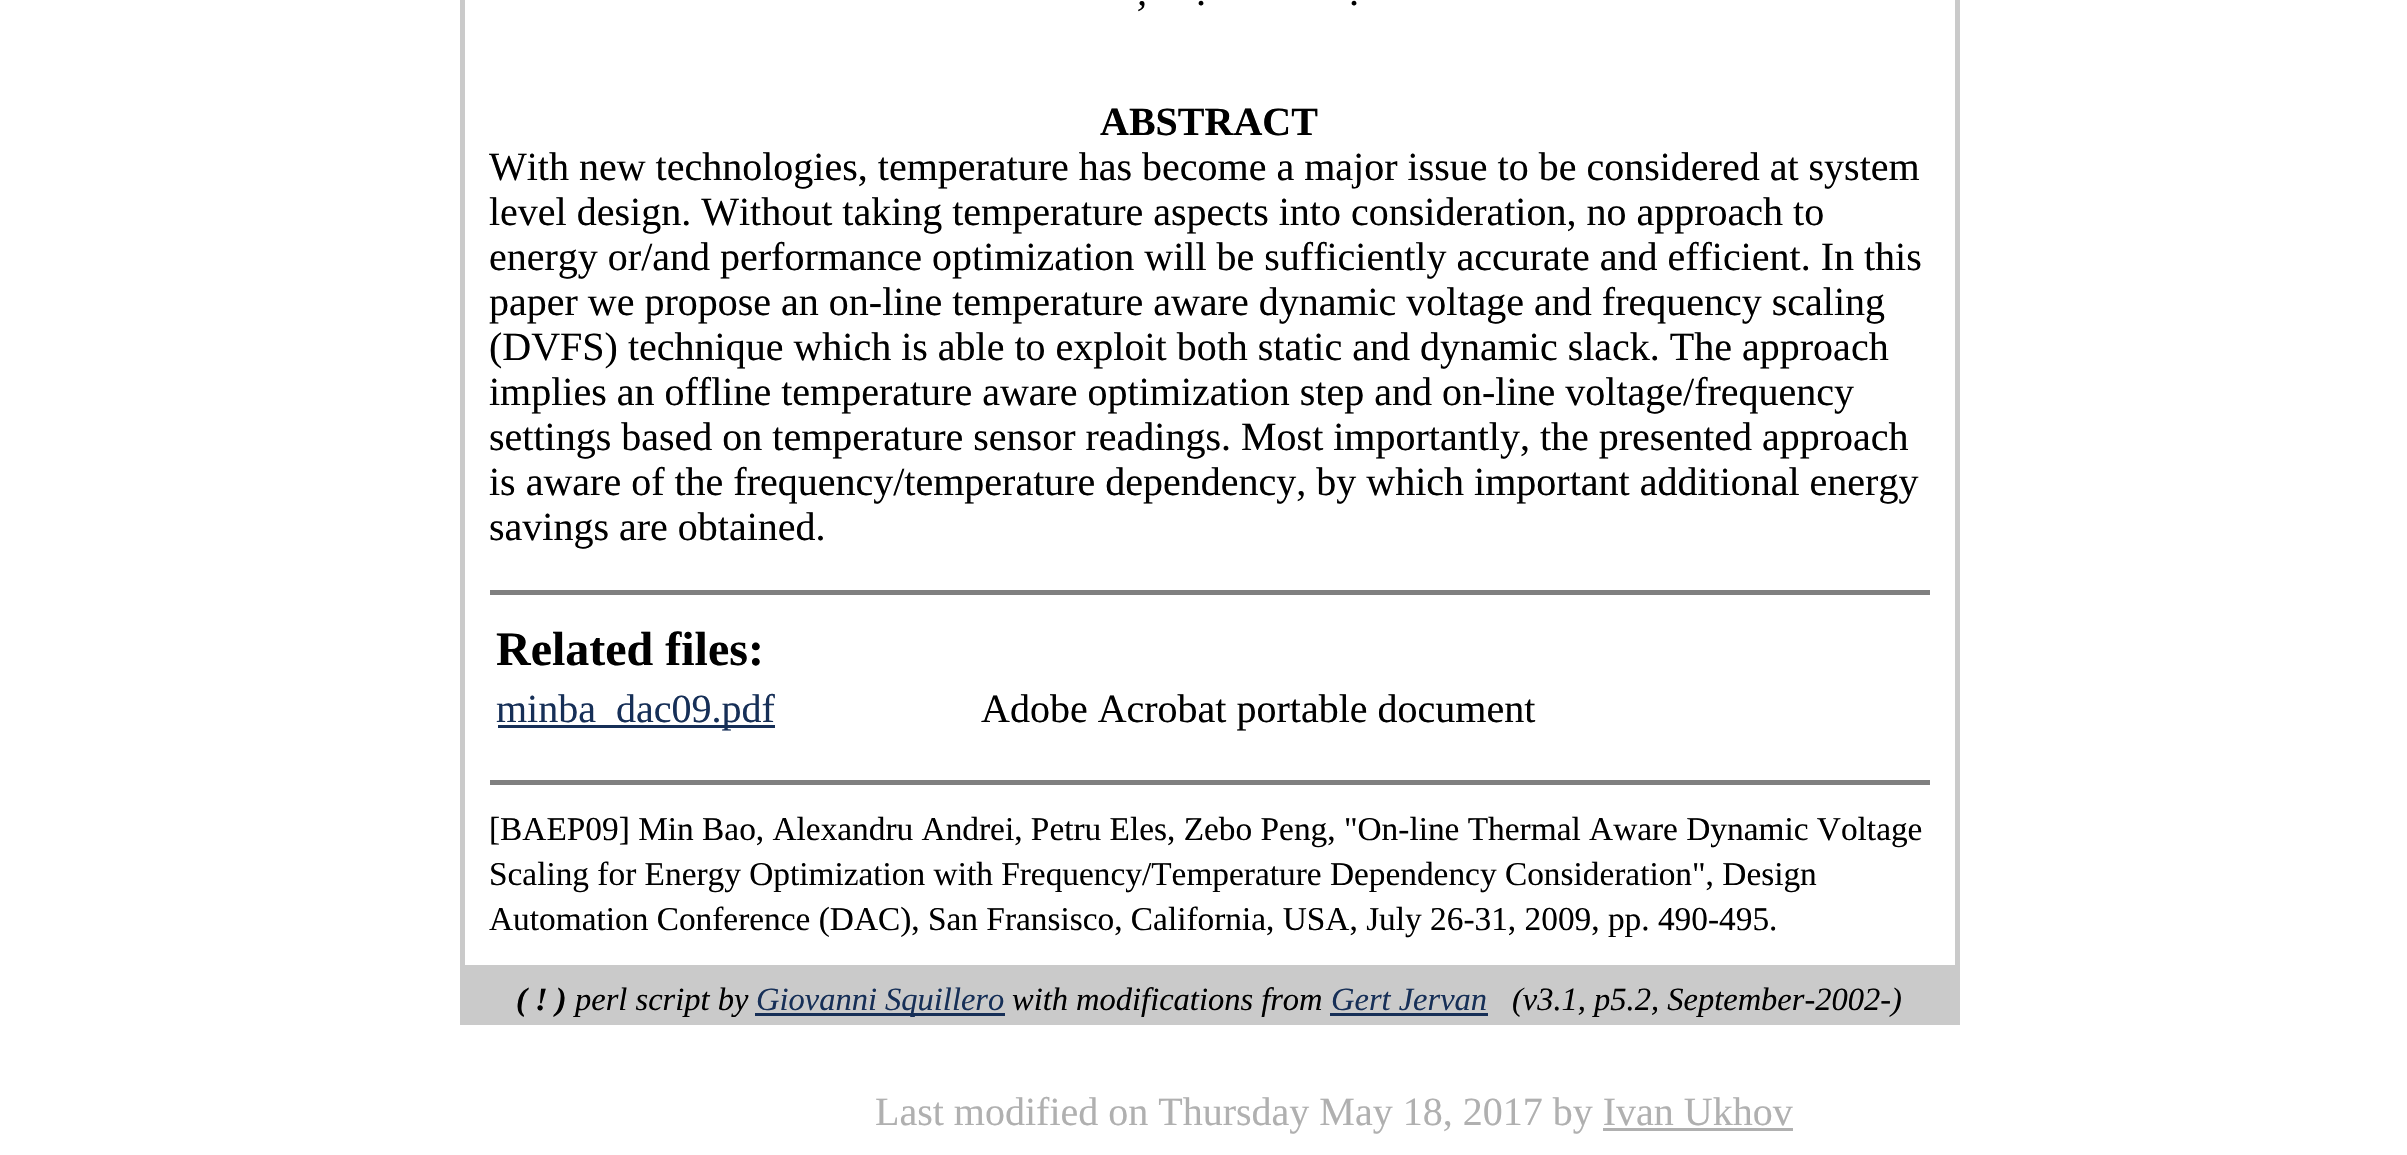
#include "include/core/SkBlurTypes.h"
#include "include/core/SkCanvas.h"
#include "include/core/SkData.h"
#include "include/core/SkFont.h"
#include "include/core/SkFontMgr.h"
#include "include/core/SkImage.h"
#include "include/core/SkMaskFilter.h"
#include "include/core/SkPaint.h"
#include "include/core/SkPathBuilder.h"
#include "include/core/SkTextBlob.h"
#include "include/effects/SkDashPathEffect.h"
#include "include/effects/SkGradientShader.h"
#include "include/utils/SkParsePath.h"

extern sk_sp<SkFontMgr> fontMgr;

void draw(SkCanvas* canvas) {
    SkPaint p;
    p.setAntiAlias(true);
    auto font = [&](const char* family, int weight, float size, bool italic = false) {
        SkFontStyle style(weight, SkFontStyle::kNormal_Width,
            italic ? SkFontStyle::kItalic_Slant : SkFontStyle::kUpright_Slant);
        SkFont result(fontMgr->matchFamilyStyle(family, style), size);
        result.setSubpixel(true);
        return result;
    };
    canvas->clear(0xFFFFFFFF);
    p.setColor(0xFFCACACA);
    canvas->drawRect(SkRect::MakeLTRB(460, 0, 1960, 1025), p);
    p.setColor(0xFFFFFFFF);
    canvas->drawRect(SkRect::MakeLTRB(465, 0, 1955, 965), p);
    auto font1 = font("Liberation Serif", 400, 40, true);
    p.setColor(0xFF000000);
    {
        const struct { const char* s; float x, y; } items[] = {
            {",", 1137, 5},
            {".", 1197, 5},
            {".", 1350, 5},
        };
        for (auto [s, x, y] : items) {
            canvas->drawString(s, x, y, font1, p);
        }
    }
    auto font2 = font("Liberation Serif", 700, 40);
    canvas->drawString("ABSTRACT", 1100, 135, font2, p);
    auto font3 = font("Liberation Serif", 400, 40);
    {
        const struct { const char* s; float x, y; } items[] = {
            {"With new technologies, temperature has become a major issue to be considered at system", 489, 180},
            {"level design. Without taking temperature aspects into consideration, no approach to", 489, 225},
            {"energy or/and performance optimization will be sufficiently accurate and efficient. In this", 489, 270},
            {"paper we propose an on-line temperature aware dynamic voltage and frequency scaling", 489, 315},
            {"(DVFS) technique which is able to exploit both static and dynamic slack. The approach", 489, 360},
            {"implies an offline temperature aware optimization step and on-line voltage/frequency", 489, 405},
            {"settings based on temperature sensor readings. Most importantly, the presented approach", 489, 450},
            {"is aware of the frequency/temperature dependency, by which important additional energy", 489, 495},
            {"savings are obtained.", 489, 540},
        };
        for (auto [s, x, y] : items) {
            canvas->drawString(s, x, y, font3, p);
        }
    }
    p.setColor(0xFF808080);
    canvas->drawRect(SkRect::MakeLTRB(490, 590, 1930, 595), p);
    auto font4 = font("Liberation Serif", 700, 48);
    p.setColor(0xFF000000);
    canvas->drawString("Related files:", 496, 665, font4, p);
    p.setColor(0xFF162F57);
    canvas->drawRect(SkRect::MakeLTRB(498, 725, 775, 728), p);
    canvas->drawString("minba_dac09.pdf", 496, 722, font3, p);
    p.setColor(0xFF000000);
    canvas->drawString("Adobe Acrobat portable document", 981, 722, font3, p);
    p.setColor(0xFF808080);
    canvas->drawRect(SkRect::MakeLTRB(490, 780, 1930, 785), p);
    auto font5 = font("Liberation Serif", 400, 33.35f);
    p.setColor(0xFF000000);
    {
        const struct { const char* s; float x, y; } items[] = {
            {"[BAEP09] Min Bao, Alexandru Andrei, Petru Eles, Zebo Peng, \"On-line Thermal Aware Dynamic Voltage", 489, 840},
            {"Scaling for Energy Optimization with Frequency/Temperature Dependency Consideration\", Design", 489, 885},
            {"Automation Conference (DAC), San Fransisco, California, USA, July 26-31, 2009, pp. 490-495.", 489, 930},
        };
        for (auto [s, x, y] : items) {
            canvas->drawString(s, x, y, font5, p);
        }
    }
    auto font6 = font("Liberation Serif", 700, 32.5f, true);
    canvas->drawString("( ! )", 516, 1010, font6, p);
    auto font7 = font("Liberation Serif", 400, 32.5f, true);
    canvas->drawString("perl script by", 575, 1010, font7, p);
    p.setColor(0xFF162F57);
    canvas->drawRect(SkRect::MakeLTRB(755, 1013, 1005, 1016), p);
    canvas->drawString("Giovanni Squillero", 756, 1010, font7, p);
    p.setColor(0xFF000000);
    canvas->drawString("with modifications from", 1012, 1010, font7, p);
    p.setColor(0xFF162F57);
    canvas->drawString("Gert Jervan", 1331, 1010, font7, p);
    canvas->drawRect(SkRect::MakeLTRB(1330, 1013, 1488, 1016), p);
    p.setColor(0xFF000000);
    canvas->drawString("(v3.1, p5.2, September-2002-)", 1512, 1010, font7, p);
    p.setColor(0xFFB0B0B0);
    canvas->drawString("Last modified on Thursday May 18, 2017 by Ivan Ukhov", 875, 1125, font3, p);
    canvas->drawRect(SkRect::MakeLTRB(1603, 1128, 1793, 1131), p);
}
